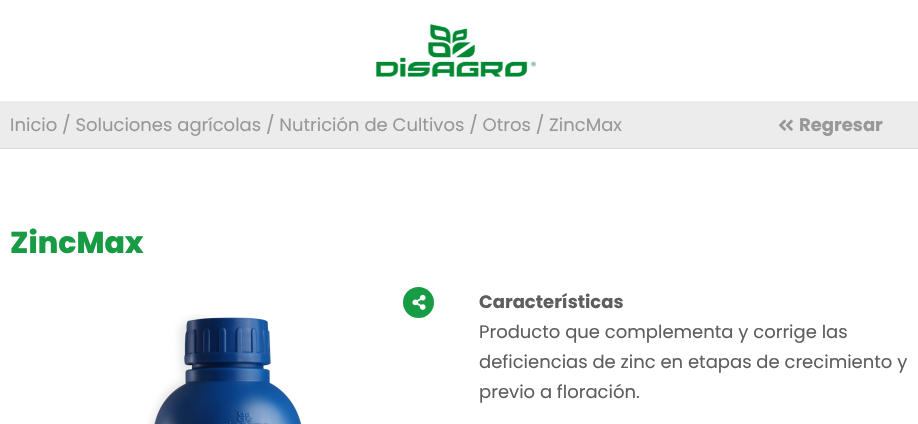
#include "include/core/SkBlurTypes.h"
#include "include/core/SkCanvas.h"
#include "include/core/SkData.h"
#include "include/core/SkFont.h"
#include "include/core/SkFontMgr.h"
#include "include/core/SkImage.h"
#include "include/core/SkMaskFilter.h"
#include "include/core/SkPaint.h"
#include "include/core/SkPathBuilder.h"
#include "include/core/SkTextBlob.h"
#include "include/effects/SkDashPathEffect.h"
#include "include/effects/SkGradientShader.h"
#include "include/utils/SkParsePath.h"

extern sk_sp<SkFontMgr> fontMgr;

void draw(SkCanvas* canvas) {
    SkPaint p;
    p.setAntiAlias(true);
    auto font = [&](const char* family, int weight, float size, bool italic = false) {
        SkFontStyle style(weight, SkFontStyle::kNormal_Width,
            italic ? SkFontStyle::kItalic_Slant : SkFontStyle::kUpright_Slant);
        SkFont result(fontMgr->matchFamilyStyle(family, style), size);
        result.setSubpixel(true);
        return result;
    };
    auto drawPhoto = [&](const char* path, float l, float t, float r, float b) {
        auto image = SkImages::DeferredFromEncodedData(SkData::MakeFromFileName(path));
        canvas->drawImageRect(image, SkRect::MakeLTRB(l, t, r, b), SkSamplingOptions());
    };
    canvas->clear(0xFFFFFFFF);
    drawPhoto("media/1.png", 375, 24, 537, 77);
    p.setColor(0xFFECECEC);
    canvas->drawRect(SkRect::MakeLTRB(0, 101, 918, 148), p);
    p.setColor(0xFFD9D9D9);
    canvas->drawRect(SkRect::MakeLTRB(0, 148, 918, 149), p);
    auto font1 = font("Poppins", 400, 18);
    p.setColor(0xFF989898);
    canvas->drawString("Inicio / Soluciones agrícolas / Nutrición de Cultivos / Otros / ZincMax", 10, 131, font1, p);
    drawPhoto("media/2.png", 779, 119, 793, 131);
    auto font2 = font("Poppins", 700, 18);
    canvas->drawString("Regresar", 799, 131, font2, p);
    auto font3 = font("Poppins", 800, 30);
    p.setColor(0xFF179B44);
    canvas->drawString("ZincMax", 10, 253, font3, p);
    canvas->drawCircle(418.5f, 302.5f, 15.5f, p);
    drawPhoto("media/3.png", 412, 294, 426, 310);
    drawPhoto("media/4.png", 147, 314, 302, 424);
    p.setColor(0xFF5C5F5D);
    canvas->drawString("Características", 479, 308, font2, p);
    {
        const struct { const char* s; float x, y; } items[] = {
            {"Producto que complementa y corrige las", 479, 338},
            {"deficiencias de zinc en etapas de crecimiento y", 479, 368},
            {"previo a floración.", 479, 398},
        };
        for (auto [s, x, y] : items) {
            canvas->drawString(s, x, y, font1, p);
        }
    }
}
